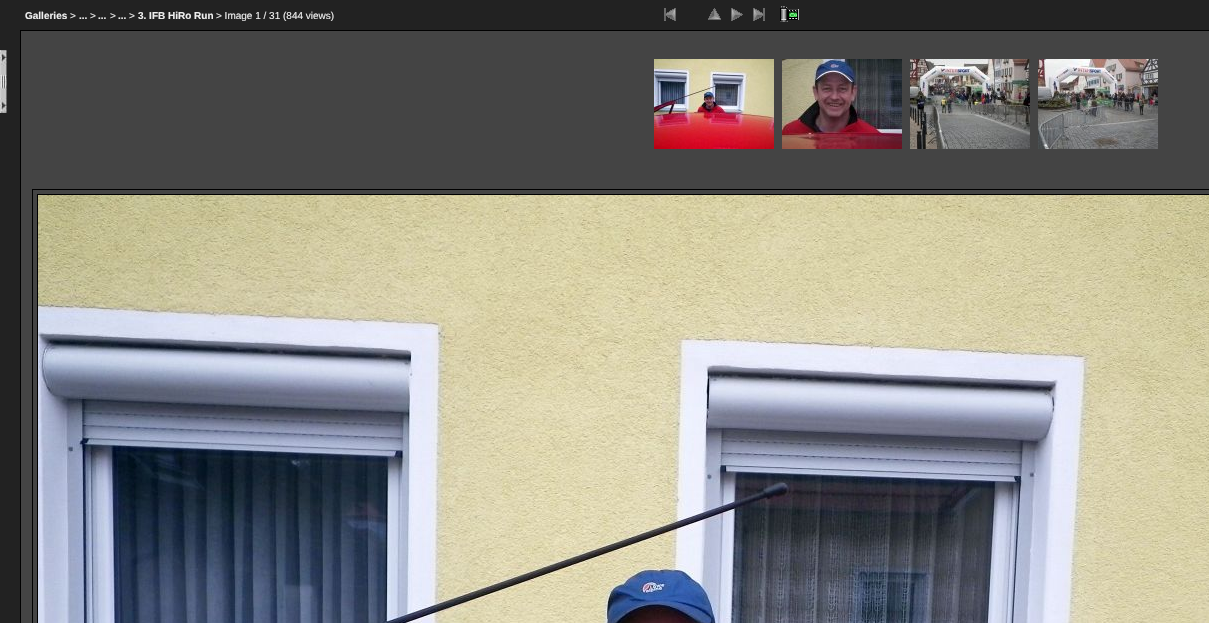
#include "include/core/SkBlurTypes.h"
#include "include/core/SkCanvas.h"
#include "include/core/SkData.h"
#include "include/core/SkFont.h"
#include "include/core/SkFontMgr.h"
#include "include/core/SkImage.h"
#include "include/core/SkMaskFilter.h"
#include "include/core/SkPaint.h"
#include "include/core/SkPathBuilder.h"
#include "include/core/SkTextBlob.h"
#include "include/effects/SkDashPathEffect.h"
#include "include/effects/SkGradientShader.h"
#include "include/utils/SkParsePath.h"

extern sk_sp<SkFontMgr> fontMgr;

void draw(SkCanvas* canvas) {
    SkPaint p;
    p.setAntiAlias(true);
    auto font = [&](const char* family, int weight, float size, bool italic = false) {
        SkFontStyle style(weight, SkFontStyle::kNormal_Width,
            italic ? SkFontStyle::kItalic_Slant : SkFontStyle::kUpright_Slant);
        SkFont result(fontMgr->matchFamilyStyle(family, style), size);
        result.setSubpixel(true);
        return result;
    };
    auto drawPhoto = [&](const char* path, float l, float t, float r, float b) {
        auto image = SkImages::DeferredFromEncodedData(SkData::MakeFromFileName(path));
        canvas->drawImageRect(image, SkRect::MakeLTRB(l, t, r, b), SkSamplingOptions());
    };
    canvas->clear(0xFF222222);
    auto font1 = font("Liberation Sans", 700, 10);
    p.setColor(0xFFEEEEEE);
    canvas->drawString("Galleries", 25, 19, font1, p);
    auto font2 = font("Liberation Sans", 400, 10);
    canvas->drawString(">", 70, 19, font2, p);
    canvas->drawString("...", 79, 19, font1, p);
    canvas->drawString(">", 90, 19, font2, p);
    canvas->drawString("...", 98, 19, font1, p);
    canvas->drawString(">", 110, 19, font2, p);
    canvas->drawString("...", 118, 19, font1, p);
    canvas->drawString(">", 129, 19, font2, p);
    canvas->drawString("3. IFB HiRo Run", 138, 19, font1, p);
    canvas->drawString("> Image 1 / 31 (844 views)", 216, 19, font2, p);
    drawPhoto("media/1.png", 664, 8, 676, 21);
    drawPhoto("media/2.png", 708, 8, 721, 20);
    drawPhoto("media/3.png", 731, 8, 743, 21);
    drawPhoto("media/4.png", 753, 8, 765, 21);
    drawPhoto("media/5.png", 780, 6, 799, 22);
    p.setStyle(SkPaint::kStroke_Style);
    p.setStrokeWidth(1);
    p.setColor(0xFF000000);
    canvas->drawRect(SkRect::MakeLTRB(20.5f, 30.5f, 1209.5f, 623.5f), p);
    p.setStyle(SkPaint::kFill_Style);
    p.setColor(0xFF444444);
    canvas->drawRect(SkRect::MakeLTRB(21, 31, 1209, 623), p);
    drawPhoto("media/6.png", 654, 59, 774, 149);
    drawPhoto("media/7.png", 782, 59, 902, 149);
    drawPhoto("media/8.png", 910, 59, 1030, 149);
    drawPhoto("media/9.png", 1038, 59, 1158, 149);
    p.setStyle(SkPaint::kStroke_Style);
    p.setColor(0xFF000000);
    canvas->drawRect(SkRect::MakeLTRB(32.5f, 189.5f, 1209.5f, 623.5f), p);
    canvas->drawRect(SkRect::MakeLTRB(37.5f, 194.5f, 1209.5f, 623.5f), p);
    drawPhoto("media/10.png", 38, 195, 1209, 623);
    drawPhoto("media/11.png", 0, 50, 7, 113);
}
